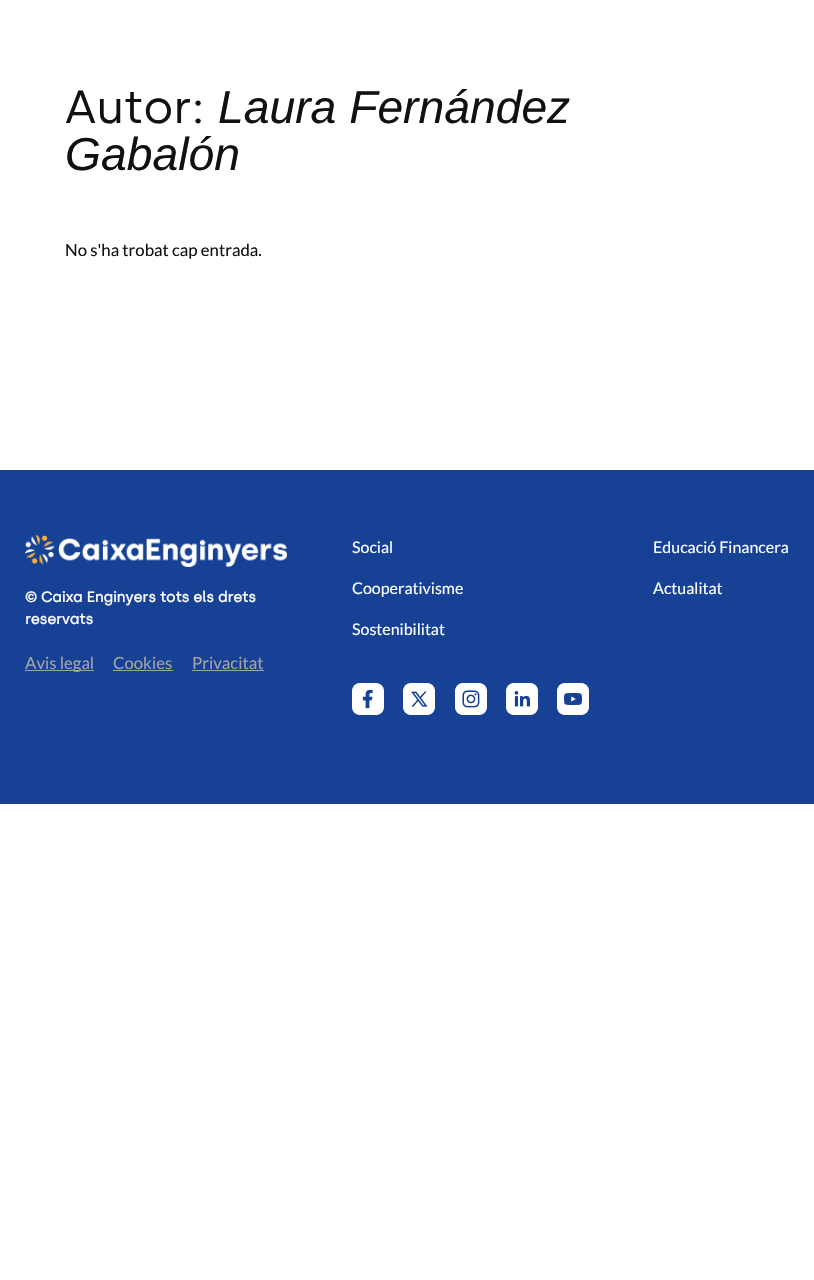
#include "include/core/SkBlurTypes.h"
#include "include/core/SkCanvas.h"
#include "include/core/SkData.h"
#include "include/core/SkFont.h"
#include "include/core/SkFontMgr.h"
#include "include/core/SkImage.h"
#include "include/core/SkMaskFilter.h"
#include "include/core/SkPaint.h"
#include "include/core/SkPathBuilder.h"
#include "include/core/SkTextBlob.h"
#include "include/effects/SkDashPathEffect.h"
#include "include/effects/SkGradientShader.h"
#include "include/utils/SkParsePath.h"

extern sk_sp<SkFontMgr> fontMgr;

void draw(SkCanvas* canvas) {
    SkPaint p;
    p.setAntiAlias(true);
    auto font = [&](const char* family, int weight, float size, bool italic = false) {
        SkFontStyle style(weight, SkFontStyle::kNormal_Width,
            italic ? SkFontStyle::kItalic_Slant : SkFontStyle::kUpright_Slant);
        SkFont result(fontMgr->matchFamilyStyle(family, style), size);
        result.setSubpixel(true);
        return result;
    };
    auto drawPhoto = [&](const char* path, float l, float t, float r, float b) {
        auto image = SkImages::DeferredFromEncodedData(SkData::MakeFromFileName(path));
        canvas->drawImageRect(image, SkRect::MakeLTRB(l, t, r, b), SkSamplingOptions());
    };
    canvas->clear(0xFFFFFFFF);
    auto font1 = font("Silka", 400, 46.25f);
    p.setColor(0xFF111111);
    canvas->drawString("Autor:", 65, 123, font1, p);
    auto font2 = font("Liberation Sans", 400, 46.25f, true);
    canvas->drawString("Laura Fernández", 218, 123, font2, p);
    canvas->drawString("Gabalón", 65, 170, font2, p);
    auto font3 = font("Lato", 400, 16.75f);
    canvas->drawString("No s'ha trobat cap entrada.", 65, 256, font3, p);
    p.setColor(0xFF164194);
    canvas->drawRect(SkRect::MakeLTRB(0, 470, 814, 804), p);
    drawPhoto("media/1.png", 25, 535, 287, 567);
    auto font4 = font("Silka", 700, 14.5f);
    p.setColor(0xFFF9F9F9);
    canvas->drawString("© Caixa Enginyers tots els drets", 25, 602, font4, p);
    canvas->drawString("reservats", 25, 624, font4, p);
    p.setColor(0xFFA4A4A4);
    canvas->drawRect(SkRect::MakeLTRB(25, 670, 94, 671), p);
    canvas->drawString("Avis legal", 25, 669, font3, p);
    canvas->drawString("Cookies", 113, 669, font3, p);
    canvas->drawRect(SkRect::MakeLTRB(113, 670, 173, 671), p);
    canvas->drawString("Privacitat", 192, 669, font3, p);
    canvas->drawRect(SkRect::MakeLTRB(192, 670, 264, 671), p);
    auto font5 = font("Lato", 400, 16);
    p.setColor(0xFFFFFFFF);
    {
        const struct { const char* s; float x, y; } items[] = {
            {"Social", 352, 553},
            {"Cooperativisme", 352, 594},
            {"Sostenibilitat", 352, 635},
            {"Educació Financera", 653, 553},
            {"Actualitat", 653, 594},
        };
        for (auto [s, x, y] : items) {
            canvas->drawString(s, x, y, font5, p);
        }
    }
    drawPhoto("media/2.png", 352, 683, 384, 715);
    drawPhoto("media/3.png", 403, 683, 435, 715);
    drawPhoto("media/4.png", 455, 683, 487, 715);
    drawPhoto("media/5.png", 506, 683, 538, 715);
    drawPhoto("media/6.png", 557, 683, 589, 715);
}
